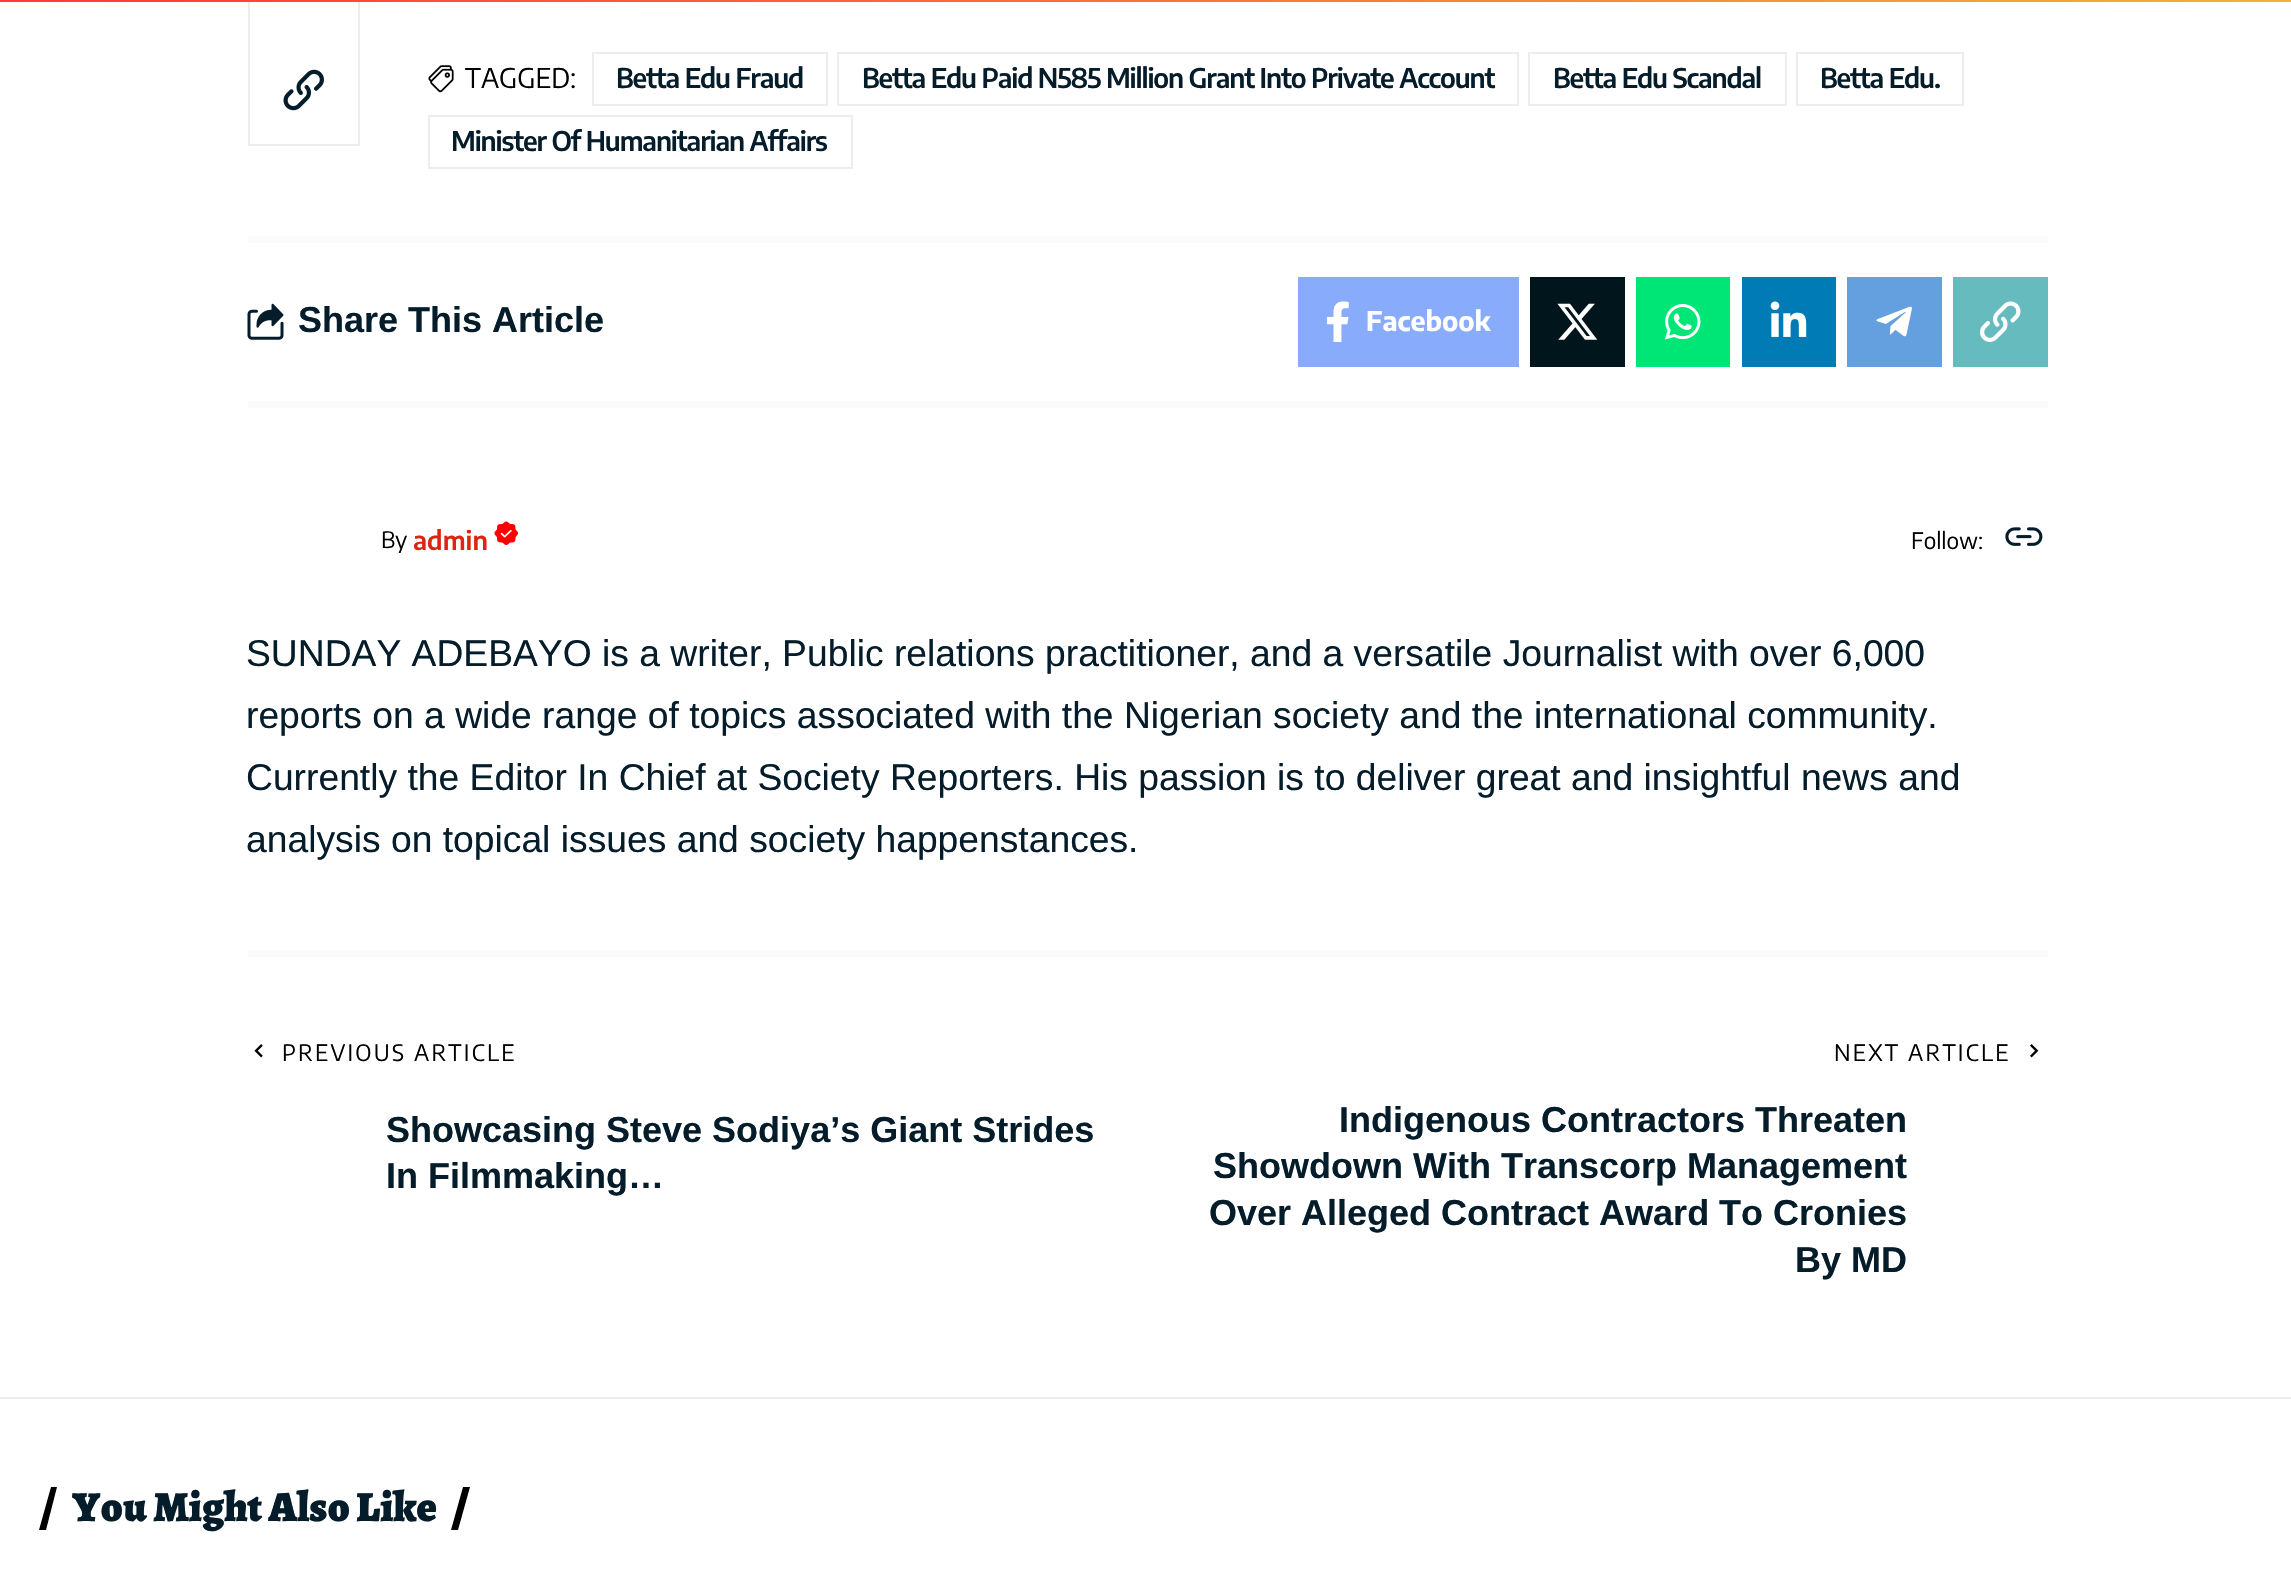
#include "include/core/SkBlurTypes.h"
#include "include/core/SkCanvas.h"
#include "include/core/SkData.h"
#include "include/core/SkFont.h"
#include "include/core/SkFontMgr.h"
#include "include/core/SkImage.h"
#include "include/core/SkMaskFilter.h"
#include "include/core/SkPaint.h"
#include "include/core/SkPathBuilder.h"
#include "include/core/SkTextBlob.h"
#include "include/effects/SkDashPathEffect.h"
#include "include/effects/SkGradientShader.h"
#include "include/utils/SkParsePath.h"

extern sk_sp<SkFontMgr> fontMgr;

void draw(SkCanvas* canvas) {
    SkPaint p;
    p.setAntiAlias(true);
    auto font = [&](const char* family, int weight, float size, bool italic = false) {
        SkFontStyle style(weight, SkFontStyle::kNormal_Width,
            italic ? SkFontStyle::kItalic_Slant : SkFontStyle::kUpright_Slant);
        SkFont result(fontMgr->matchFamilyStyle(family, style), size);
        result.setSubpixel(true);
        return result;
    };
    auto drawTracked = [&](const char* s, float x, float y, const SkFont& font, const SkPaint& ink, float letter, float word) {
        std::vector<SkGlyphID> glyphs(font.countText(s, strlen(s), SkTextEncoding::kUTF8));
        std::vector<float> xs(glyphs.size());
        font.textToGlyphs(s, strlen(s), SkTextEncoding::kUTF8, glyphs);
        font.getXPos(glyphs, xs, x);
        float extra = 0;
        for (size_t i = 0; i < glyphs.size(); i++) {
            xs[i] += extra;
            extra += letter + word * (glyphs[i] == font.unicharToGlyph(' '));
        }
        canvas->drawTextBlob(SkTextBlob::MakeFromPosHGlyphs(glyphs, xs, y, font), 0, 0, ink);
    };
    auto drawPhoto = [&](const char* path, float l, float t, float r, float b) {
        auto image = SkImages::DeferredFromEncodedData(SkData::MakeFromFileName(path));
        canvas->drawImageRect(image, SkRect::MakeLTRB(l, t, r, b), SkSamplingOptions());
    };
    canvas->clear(0xFFFFFFFF);
    p.setStyle(SkPaint::kStroke_Style);
    p.setStrokeWidth(2);
    p.setColor(0xFFEDEDED);
    canvas->drawRect(SkRect::MakeLTRB(249, -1, 359, 145), p);
    p.setStyle(SkPaint::kFill_Style);
    {
        const SkColor colors[] = {0xFFFF3838, 0xFFF2B035};
        const float stops[] = {0, 1};
        const SkPoint ends[] = {{0, 1.1f}, {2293, 1.1f}};
        p.setShader(SkGradientShader::MakeLinear(ends, colors, stops, 2, SkTileMode::kClamp));
        p.setAlpha(255);
    }
    canvas->drawRect(SkRect::MakeLTRB(0, 0, 2291, 2), p);
    drawPhoto("media/1.png", 283, 69, 324, 111);
    drawPhoto("media/2.png", 428, 65, 454, 93);
    auto font1 = font("Encode Sans Condensed", 400, 27);
    p.setShader(nullptr);
    p.setColor(0xFF000000);
    canvas->drawString("TAGGED:", 465, 88, font1, p);
    p.setStyle(SkPaint::kStroke_Style);
    p.setColor(0xFFEDEDED);
    canvas->drawRect(SkRect::MakeLTRB(593, 53, 827, 105), p);
    auto font2 = font("Encode Sans Condensed", 600, 27);
    p.setStyle(SkPaint::kFill_Style);
    p.setColor(0xFF051D2B);
    drawTracked("Betta Edu Fraud", 616, 88, font2, p, -1.13f, 0);
    p.setStyle(SkPaint::kStroke_Style);
    p.setColor(0xFFEDEDED);
    canvas->drawRect(SkRect::MakeLTRB(838, 53, 1518, 105), p);
    p.setStyle(SkPaint::kFill_Style);
    p.setColor(0xFF051D2B);
    drawTracked("Betta Edu Paid N585 Million Grant Into Private Account", 862, 88, font2, p, -1.13f, 0);
    p.setStyle(SkPaint::kStroke_Style);
    p.setColor(0xFFEDEDED);
    canvas->drawRect(SkRect::MakeLTRB(1529, 53, 1786, 105), p);
    p.setStyle(SkPaint::kFill_Style);
    p.setColor(0xFF051D2B);
    drawTracked("Betta Edu Scandal", 1553, 88, font2, p, -1.13f, 0);
    p.setStyle(SkPaint::kStroke_Style);
    p.setColor(0xFFEDEDED);
    canvas->drawRect(SkRect::MakeLTRB(1797, 53, 1963, 105), p);
    p.setStyle(SkPaint::kFill_Style);
    p.setColor(0xFF051D2B);
    drawTracked("Betta Edu.", 1820, 88, font2, p, -1.13f, 0);
    p.setStyle(SkPaint::kStroke_Style);
    p.setColor(0xFFEDEDED);
    canvas->drawRect(SkRect::MakeLTRB(429, 116, 852, 168), p);
    p.setStyle(SkPaint::kFill_Style);
    p.setColor(0xFF051D2B);
    drawTracked("Minister Of Humanitarian Affairs", 451, 151, font2, p, -1.13f, 0);
    p.setColor(0xFFFBFBFB);
    canvas->drawRect(SkRect::MakeLTRB(248, 236, 2048, 243), p);
    drawPhoto("media/3.png", 247, 303, 284, 340);
    auto font3 = font("Liberation Sans", 700, 36);
    p.setColor(0xFF051D2B);
    canvas->drawString("Share This Article", 298, 332, font3, p);
    p.setColor(0xFF89ABFC);
    canvas->drawRect(SkRect::MakeLTRB(1298, 277, 1519, 367), p);
    drawPhoto("media/4.png", 1327, 301, 1349, 342);
    auto font4 = font("Encode Sans Condensed", 700, 27);
    p.setColor(0xFFFFFFFF);
    canvas->drawString("Facebook", 1366, 331, font4, p);
    p.setColor(0xFF00151C);
    canvas->drawRect(SkRect::MakeLTRB(1530, 277, 1625, 367), p);
    drawPhoto("media/5.png", 1557, 303, 1598, 340);
    p.setColor(0xFF00E676);
    canvas->drawRect(SkRect::MakeLTRB(1636, 277, 1730, 367), p);
    drawPhoto("media/6.png", 1665, 304, 1701, 340);
    p.setColor(0xFF007BB6);
    canvas->drawRect(SkRect::MakeLTRB(1742, 277, 1836, 367), p);
    drawPhoto("media/7.png", 1770, 301, 1807, 337);
    p.setColor(0xFF649FDF);
    canvas->drawRect(SkRect::MakeLTRB(1847, 277, 1942, 367), p);
    drawPhoto("media/8.png", 1876, 306, 1912, 337);
    p.setColor(0xFF66BBBF);
    canvas->drawRect(SkRect::MakeLTRB(1953, 277, 2048, 367), p);
    drawPhoto("media/9.png", 1980, 301, 2021, 342);
    p.setColor(0xFFFBFBFB);
    canvas->drawRect(SkRect::MakeLTRB(248, 401, 2048, 408), p);
    auto font5 = font("Encode Sans Condensed", 400, 22.5f);
    p.setColor(0xFF000000);
    canvas->drawString("By", 381, 548, font5, p);
    auto font6 = font("Encode Sans Condensed", 600, 26);
    p.setColor(0xFFDB2511);
    canvas->drawString("admin", 413, 550, font6, p);
    drawPhoto("media/10.png", 494, 521, 519, 546);
    p.setColor(0xFF000000);
    canvas->drawString("Follow:", 1911, 549, font5, p);
    drawPhoto("media/11.png", 2005, 527, 2043, 546);
    auto font7 = font("Liberation Sans", 400, 37.25f);
    p.setColor(0xFF051D2B);
    {
        const struct { const char* s; float x, y; } items[] = {
            {"SUNDAY ADEBAYO is a writer, Public relations practitioner, and a versatile Journalist with over 6,000", 246, 666},
            {"reports on a wide range of topics associated with the Nigerian society and the international community.", 246, 728},
            {"Currently the Editor In Chief at Society Reporters. His passion is to deliver great and insightful news and", 246, 790},
            {"analysis on topical issues and society happenstances.", 246, 852},
        };
        for (auto [s, x, y] : items) {
            canvas->drawString(s, x, y, font7, p);
        }
    }
    p.setColor(0xFFFBFBFB);
    canvas->drawRect(SkRect::MakeLTRB(248, 950, 2048, 957), p);
    drawPhoto("media/12.png", 254, 1044, 263, 1058);
    p.setColor(0xFF000000);
    drawTracked("PREVIOUS ARTICLE", 282, 1061, font5, p, 2.25f, 0);
    p.setColor(0xFF051D2B);
    canvas->drawString("Showcasing Steve Sodiya’s Giant Strides", 386, 1142, font3, p);
    canvas->drawString("In Filmmaking…", 386, 1188, font3, p);
    p.setColor(0xFF000000);
    drawTracked("NEXT ARTICLE", 1834, 1061, font5, p, 2.25f, 0);
    drawPhoto("media/13.png", 2030, 1044, 2039, 1058);
    p.setColor(0xFF051D2B);
    {
        const struct { const char* s; float x, y; } items[] = {
            {"Indigenous Contractors Threaten", 1339, 1132},
            {"Showdown With Transcorp Management", 1213, 1178},
            {"Over Alleged Contract Award To Cronies", 1209, 1225},
            {"By MD", 1795, 1272},
        };
        for (auto [s, x, y] : items) {
            canvas->drawString(s, x, y, font3, p);
        }
    }
    p.setColor(0xFFEDEDED);
    canvas->drawRect(SkRect::MakeLTRB(0, 1397, 2291, 1399), p);
    p.setColor(0xFF000000);
    canvas->drawPath(SkPathBuilder().moveTo(463, 1487).lineTo(470, 1487).lineTo(458, 1530).lineTo(451, 1530).close().detach(), p);
    canvas->drawPath(SkPathBuilder().moveTo(51, 1487).lineTo(57, 1487).lineTo(46, 1530).lineTo(39, 1530).close().detach(), p);
    auto font8 = font("Alegreya", 900, 42.75f);
    p.setColor(0xFF051D2B);
    canvas->drawString("You Might Also Like", 72, 1521, font8, p);
}
